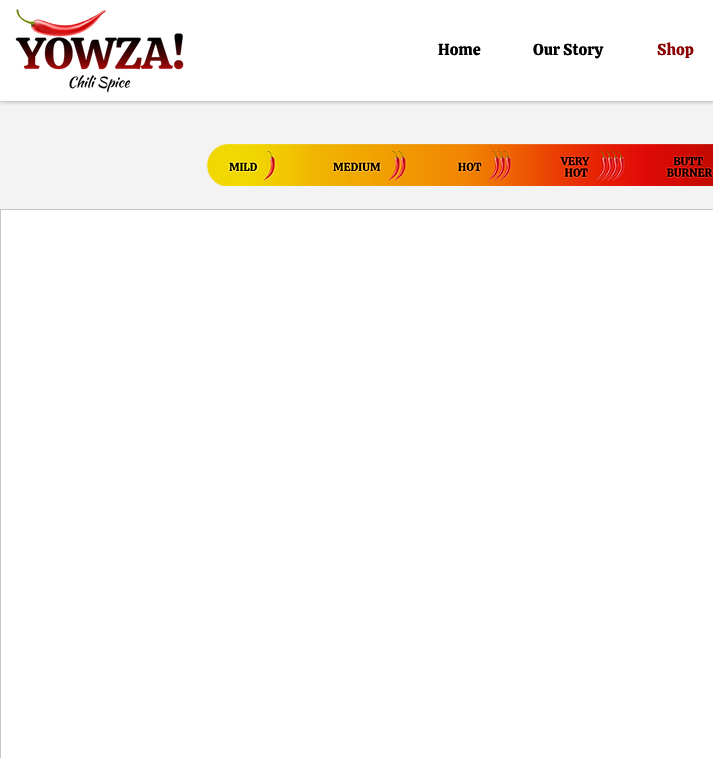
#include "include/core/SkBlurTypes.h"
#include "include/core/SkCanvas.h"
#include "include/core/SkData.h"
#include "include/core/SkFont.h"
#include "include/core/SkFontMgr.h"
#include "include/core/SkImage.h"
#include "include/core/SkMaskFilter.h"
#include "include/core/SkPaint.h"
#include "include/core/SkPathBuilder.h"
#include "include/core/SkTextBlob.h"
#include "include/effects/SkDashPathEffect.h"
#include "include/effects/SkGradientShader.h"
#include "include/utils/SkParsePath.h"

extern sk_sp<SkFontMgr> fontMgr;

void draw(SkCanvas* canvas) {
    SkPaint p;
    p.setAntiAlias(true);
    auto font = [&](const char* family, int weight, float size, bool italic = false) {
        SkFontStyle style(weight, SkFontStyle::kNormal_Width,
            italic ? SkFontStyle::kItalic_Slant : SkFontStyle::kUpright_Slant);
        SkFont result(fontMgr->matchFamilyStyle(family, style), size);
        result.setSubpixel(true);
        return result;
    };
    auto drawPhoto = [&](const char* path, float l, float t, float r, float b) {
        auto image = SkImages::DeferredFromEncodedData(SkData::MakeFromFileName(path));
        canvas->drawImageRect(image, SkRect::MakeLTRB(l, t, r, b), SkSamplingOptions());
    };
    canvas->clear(0xFFFFFFFF);
    p.setColor(0xFFF4F3F3);
    canvas->drawRect(SkRect::MakeLTRB(0, 101, 713, 209), p);
    canvas->save();
    canvas->clipRect(SkRect::MakeLTRB(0, 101, 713, 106));
    p.setColor(0xB3747373);
    p.setMaskFilter(SkMaskFilter::MakeBlur(kNormal_SkBlurStyle, 2.5f));
    canvas->drawRect(SkRect::MakeLTRB(0, 0, 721, 101), p);
    p.setMaskFilter(nullptr);
    canvas->restore();
    drawPhoto("media/1.png", 15, 9, 184, 93);
    auto font1 = font("Calistoga", 400, 16);
    p.setColor(0xFF000000);
    canvas->drawString("Home", 438, 55, font1, p);
    canvas->drawString("Our Story", 533, 55, font1, p);
    p.setColor(0xFF8B0000);
    canvas->drawString("Shop", 657, 55, font1, p);
    drawPhoto("media/2.png", 206, 144, 713, 186);
    p.setStyle(SkPaint::kStroke_Style);
    p.setStrokeWidth(1);
    p.setColor(0xFFC7C7C7);
    canvas->drawRect(SkRect::MakeLTRB(0.5f, 209.5f, 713.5f, 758.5f), p);
}
